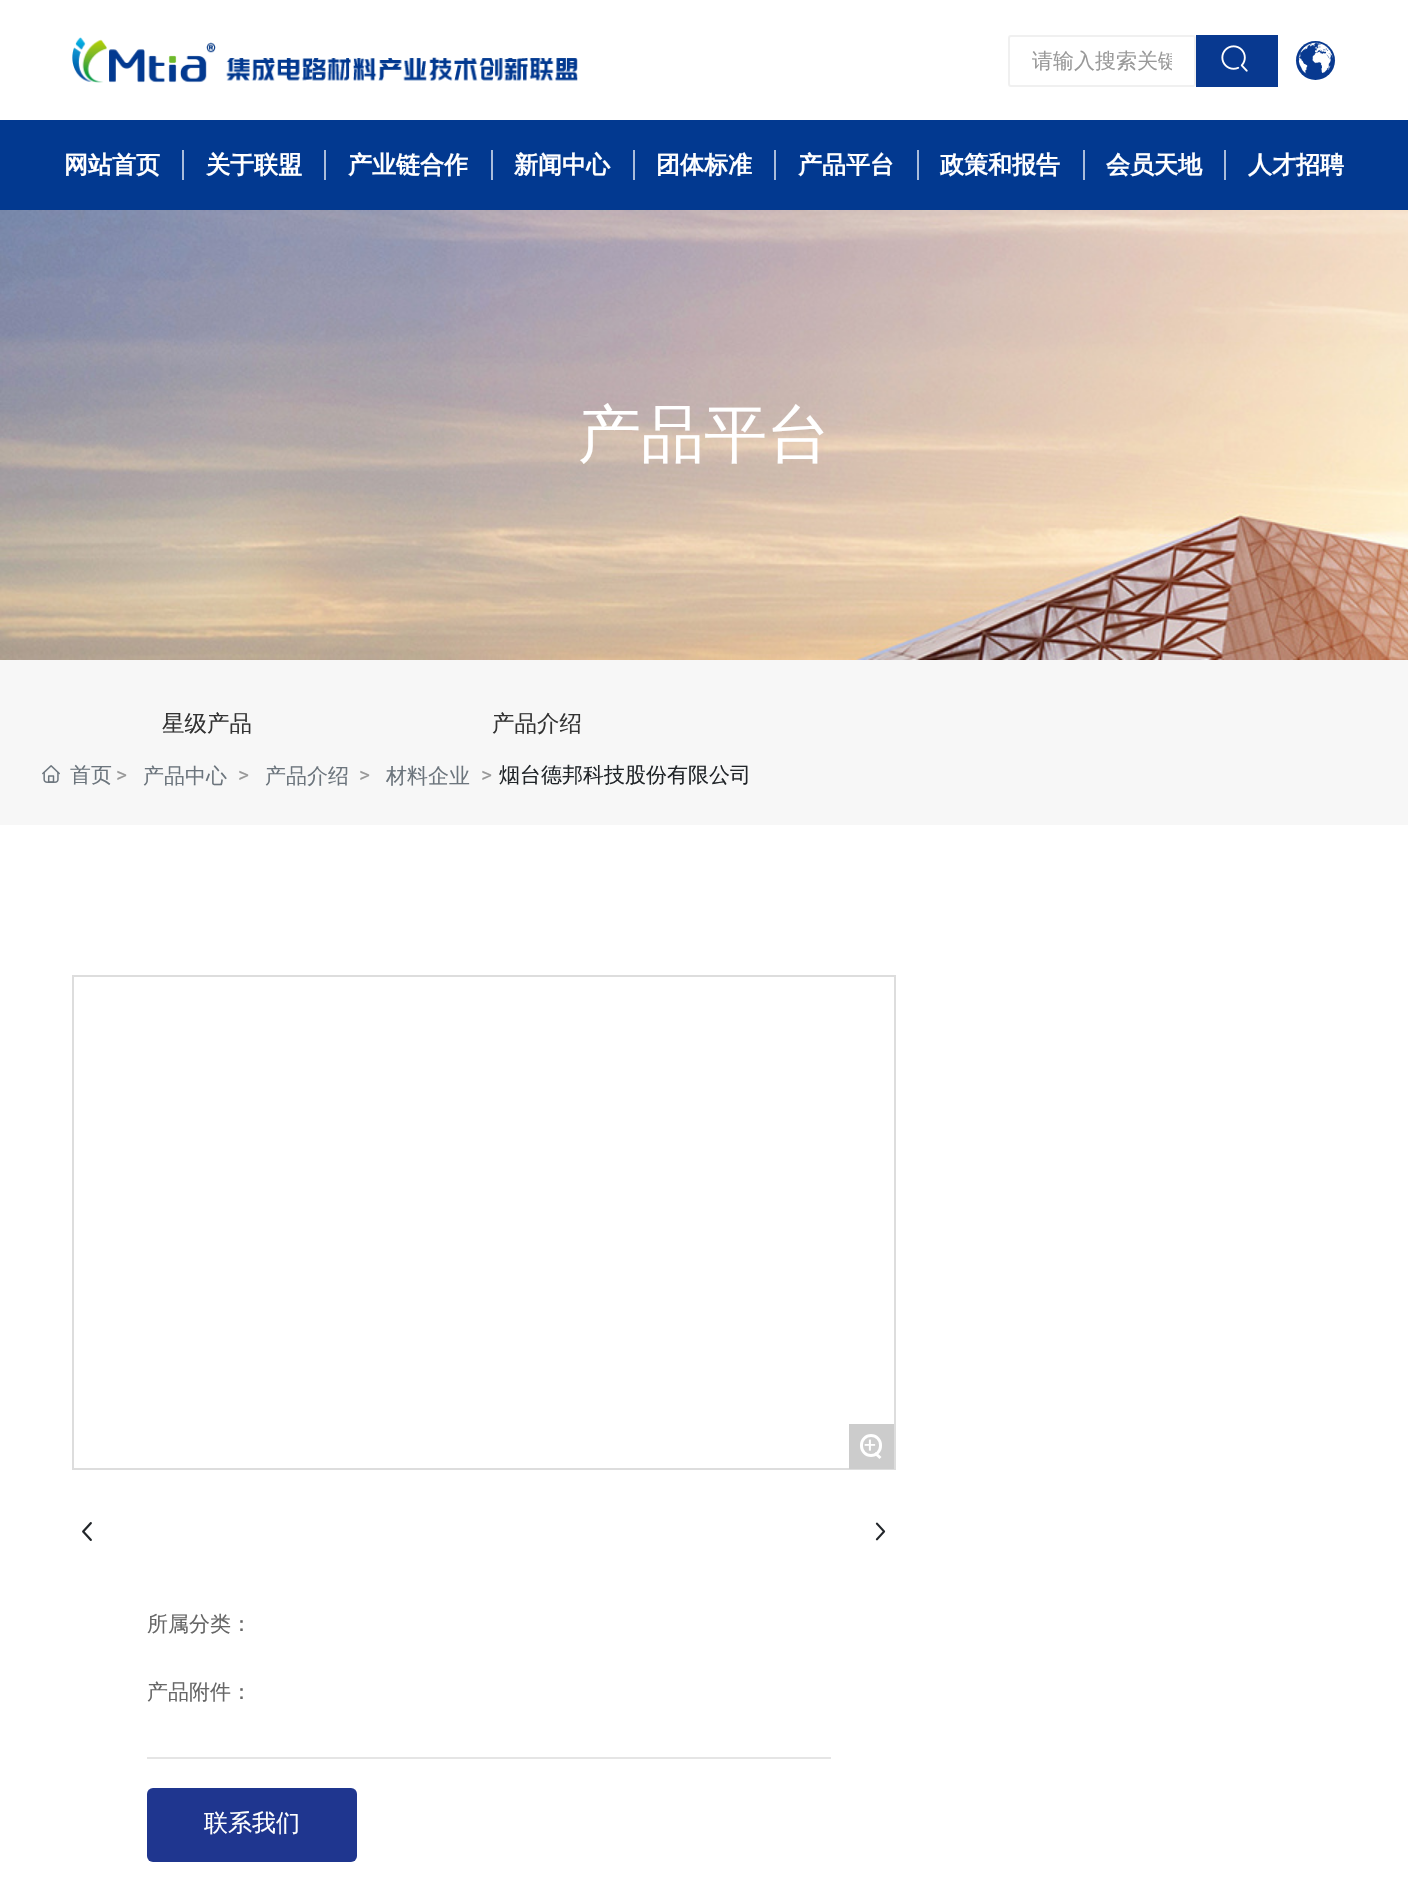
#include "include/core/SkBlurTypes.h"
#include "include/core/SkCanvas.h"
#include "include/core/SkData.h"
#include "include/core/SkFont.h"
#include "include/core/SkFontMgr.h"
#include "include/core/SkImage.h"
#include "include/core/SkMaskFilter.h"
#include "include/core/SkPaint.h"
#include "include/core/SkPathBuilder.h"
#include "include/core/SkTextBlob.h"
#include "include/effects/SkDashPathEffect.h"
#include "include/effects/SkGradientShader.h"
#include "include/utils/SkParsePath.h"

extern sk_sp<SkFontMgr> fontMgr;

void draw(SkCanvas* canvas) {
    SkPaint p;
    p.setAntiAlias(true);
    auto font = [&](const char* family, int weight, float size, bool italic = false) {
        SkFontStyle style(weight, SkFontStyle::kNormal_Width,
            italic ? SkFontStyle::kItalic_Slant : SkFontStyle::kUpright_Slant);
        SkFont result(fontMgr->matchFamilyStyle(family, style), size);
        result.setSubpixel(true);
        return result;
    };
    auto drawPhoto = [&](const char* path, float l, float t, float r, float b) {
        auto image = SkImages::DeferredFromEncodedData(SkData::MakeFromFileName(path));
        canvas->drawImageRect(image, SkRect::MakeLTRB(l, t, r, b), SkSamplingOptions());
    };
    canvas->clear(0xFFFFFFFF);
    drawPhoto("media/1.png", 72, 37, 578, 83);
    p.setStyle(SkPaint::kStroke_Style);
    p.setStrokeWidth(2);
    p.setColor(0xFFF0F0F0);
    canvas->drawRoundRect(SkRect::MakeLTRB(1009, 36, 1195, 86), 2, 2, p);
    canvas->save();
    canvas->clipRect(SkRect::MakeLTRB(1032, 48, 1172, 75));
    auto font1 = font("WenQuanYi Zen Hei", 500, 21);
    p.setStyle(SkPaint::kFill_Style);
    p.setColor(0xFF999999);
    canvas->drawString("请输入搜索关键", 1032, 68, font1, p);
    canvas->restore();
    p.setColor(0xFF083990);
    canvas->drawRect(SkRect::MakeLTRB(1196, 35, 1278, 87), p);
    drawPhoto("media/2.png", 1221, 45, 1248, 72);
    canvas->drawCircle(1315.5f, 60.5f, 19.5f, p);
    drawPhoto("media/3.png", 1298, 42, 1333, 75);
    p.setColor(0xFF023990);
    canvas->drawRect(SkRect::MakeLTRB(0, 120, 1408, 210), p);
    auto font2 = font("WenQuanYi Zen Hei", 700, 24);
    p.setColor(0xFFFFFFFF);
    canvas->drawString("网站首页", 64, 173, font2, p);
    p.setColor(0xFFAABCDA);
    canvas->drawRect(SkRect::MakeLTRB(182, 150, 184, 180), p);
    p.setColor(0xFFFFFFFF);
    canvas->drawString("关于联盟", 206, 173, font2, p);
    p.setColor(0xFFAABCDA);
    canvas->drawRect(SkRect::MakeLTRB(324, 150, 326, 180), p);
    p.setColor(0xFFFFFFFF);
    canvas->drawString("产业链合作", 348, 173, font2, p);
    p.setColor(0xFFAABCDA);
    canvas->drawRect(SkRect::MakeLTRB(491, 150, 493, 180), p);
    p.setColor(0xFFFFFFFF);
    canvas->drawString("新闻中心", 514, 173, font2, p);
    p.setColor(0xFFAABCDA);
    canvas->drawRect(SkRect::MakeLTRB(633, 150, 635, 180), p);
    p.setColor(0xFFFFFFFF);
    canvas->drawString("团体标准", 656, 173, font2, p);
    p.setColor(0xFFAABCDA);
    canvas->drawRect(SkRect::MakeLTRB(774, 150, 776, 180), p);
    p.setColor(0xFFFFFFFF);
    canvas->drawString("产品平台", 798, 173, font2, p);
    p.setColor(0xFFAABCDA);
    canvas->drawRect(SkRect::MakeLTRB(917, 150, 919, 180), p);
    p.setColor(0xFFFFFFFF);
    canvas->drawString("政策和报告", 940, 173, font2, p);
    p.setColor(0xFFAABCDA);
    canvas->drawRect(SkRect::MakeLTRB(1083, 150, 1085, 180), p);
    p.setColor(0xFFFFFFFF);
    canvas->drawString("会员天地", 1106, 173, font2, p);
    p.setColor(0xFFAABCDA);
    canvas->drawRect(SkRect::MakeLTRB(1224, 150, 1226, 180), p);
    p.setColor(0xFFFFFFFF);
    canvas->drawString("人才招聘", 1248, 173, font2, p);
    drawPhoto("media/4.png", 0, 210, 1408, 660);
    auto font3 = font("WenQuanYi Zen Hei", 500, 63);
    canvas->drawString("产品平台", 578, 456, font3, p);
    p.setColor(0xFFF7F7F7);
    canvas->drawRect(SkRect::MakeLTRB(0, 660, 1408, 825), p);
    auto font4 = font("WenQuanYi Zen Hei", 500, 22.5f);
    p.setColor(0xFF333333);
    canvas->drawString("星级产品", 162, 731, font4, p);
    canvas->drawString("产品介绍", 492, 731, font4, p);
    drawPhoto("media/5.png", 42, 765, 60, 783);
    p.setColor(0xFF6C757D);
    canvas->drawString("首页", 70, 782, font1, p);
    auto font5 = font("Roboto", 400, 21);
    p.setColor(0xFF999999);
    canvas->drawString(">", 116, 782, font5, p);
    p.setColor(0xFF6C757D);
    canvas->drawString("产品中心", 143, 783, font1, p);
    p.setColor(0xFF999999);
    canvas->drawString(">", 238, 782, font5, p);
    p.setColor(0xFF6C757D);
    canvas->drawString("产品介绍", 265, 783, font1, p);
    p.setColor(0xFF999999);
    canvas->drawString(">", 359, 782, font5, p);
    p.setColor(0xFF6C757D);
    canvas->drawString("材料企业", 386, 783, font1, p);
    p.setColor(0xFF999999);
    canvas->drawString(">", 481, 782, font5, p);
    p.setColor(0xFF212529);
    canvas->drawString("烟台德邦科技股份有限公司", 499, 782, font1, p);
    p.setStyle(SkPaint::kStroke_Style);
    p.setColor(0xFFDDDDDD);
    canvas->drawRect(SkRect::MakeLTRB(73, 976, 895, 1469), p);
    p.setStyle(SkPaint::kFill_Style);
    p.setColor(0xFFCCCCCC);
    canvas->drawRect(SkRect::MakeLTRB(849, 1424, 894, 1469), p);
    p.setStyle(SkPaint::kStroke_Style);
    p.setStrokeWidth(3);
    p.setColor(0xFFFFFFFF);
    canvas->drawRoundRect(SkRect::MakeLTRB(861.5f, 1435.5f, 880.5f, 1455.5f), 9.5f, 9.5f, p);
    p.setStyle(SkPaint::kFill_Style);
    canvas->drawString("+", 864, 1452, font5, p);
    canvas->drawPath(SkPathBuilder().moveTo(876, 1452).lineTo(881.5f, 1457).lineTo(879.5f, 1459).lineTo(874, 1454).close().detach(), p);
    drawPhoto("media/6.png", 82, 1522, 92, 1541);
    drawPhoto("media/7.png", 875, 1522, 886, 1541);
    p.setColor(0xFF666666);
    canvas->drawString("所属分类：", 147, 1631, font1, p);
    canvas->drawString("产品附件：", 147, 1699, font1, p);
    p.setColor(0xFFE5E5E5);
    canvas->drawRect(SkRect::MakeLTRB(147, 1757, 831, 1759), p);
    p.setColor(0xFF1F368F);
    canvas->drawRoundRect(SkRect::MakeLTRB(147, 1788, 357, 1862), 6, 6, p);
    auto font6 = font("WenQuanYi Zen Hei", 500, 24);
    p.setColor(0xFFFFFFFF);
    canvas->drawString("联系我们", 204, 1831, font6, p);
}
